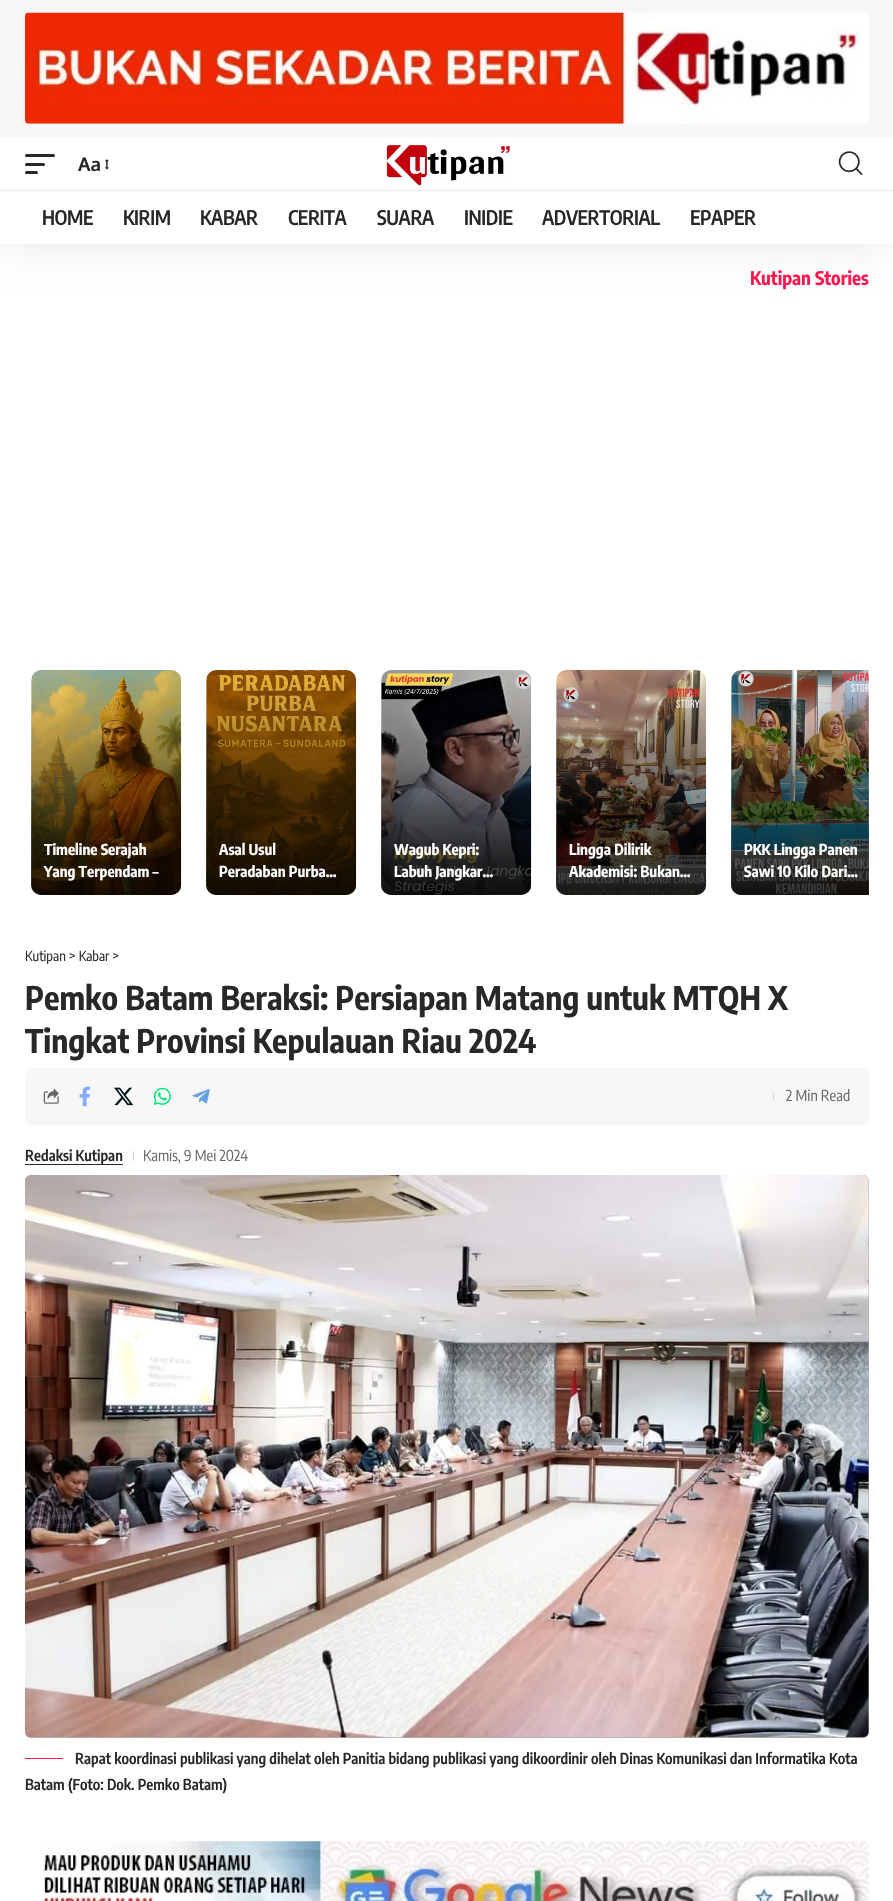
#include "include/core/SkBlurTypes.h"
#include "include/core/SkCanvas.h"
#include "include/core/SkData.h"
#include "include/core/SkFont.h"
#include "include/core/SkFontMgr.h"
#include "include/core/SkImage.h"
#include "include/core/SkMaskFilter.h"
#include "include/core/SkPaint.h"
#include "include/core/SkPathBuilder.h"
#include "include/core/SkTextBlob.h"
#include "include/effects/SkDashPathEffect.h"
#include "include/effects/SkGradientShader.h"
#include "include/utils/SkParsePath.h"

extern sk_sp<SkFontMgr> fontMgr;

void draw(SkCanvas* canvas) {
    SkPaint p;
    p.setAntiAlias(true);
    auto font = [&](const char* family, int weight, float size, bool italic = false) {
        SkFontStyle style(weight, SkFontStyle::kNormal_Width,
            italic ? SkFontStyle::kItalic_Slant : SkFontStyle::kUpright_Slant);
        SkFont result(fontMgr->matchFamilyStyle(family, style), size);
        result.setSubpixel(true);
        return result;
    };
    auto drawTracked = [&](const char* s, float x, float y, const SkFont& font, const SkPaint& ink, float letter, float word) {
        std::vector<SkGlyphID> glyphs(font.countText(s, strlen(s), SkTextEncoding::kUTF8));
        std::vector<float> xs(glyphs.size());
        font.textToGlyphs(s, strlen(s), SkTextEncoding::kUTF8, glyphs);
        font.getXPos(glyphs, xs, x);
        float extra = 0;
        for (size_t i = 0; i < glyphs.size(); i++) {
            xs[i] += extra;
            extra += letter + word * (glyphs[i] == font.unicharToGlyph(' '));
        }
        canvas->drawTextBlob(SkTextBlob::MakeFromPosHGlyphs(glyphs, xs, y, font), 0, 0, ink);
    };
    auto drawPhoto = [&](const char* path, float l, float t, float r, float b) {
        auto image = SkImages::DeferredFromEncodedData(SkData::MakeFromFileName(path));
        canvas->drawImageRect(image, SkRect::MakeLTRB(l, t, r, b), SkSamplingOptions());
    };
    canvas->clear(0xFFFFFFFF);
    p.setColor(0xFFF7F7F7);
    canvas->drawRect(SkRect::MakeLTRB(0, 0, 893, 138), p);
    drawPhoto("media/1.png", 25, 12, 869, 124);
    canvas->save();
    canvas->clipRect(SkRect::MakeLTRB(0, 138, 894, 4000));
    p.setColor(0x12000000);
    p.setMaskFilter(SkMaskFilter::MakeBlur(kNormal_SkBlurStyle, 19));
    canvas->drawRect(SkRect::MakeLTRB(0, 143, 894, 249), p);
    p.setMaskFilter(nullptr);
    canvas->restore();
    p.setColor(0xFFFFFFFF);
    canvas->drawRect(SkRect::MakeLTRB(0, 138, 893, 244), p);
    p.setColor(0xFF282828);
    canvas->drawRoundRect(SkRect::MakeLTRB(25, 154, 55, 157), 1.5f, 1.5f, p);
    canvas->drawRoundRect(SkRect::MakeLTRB(25, 163, 45, 166), 1.5f, 1.5f, p);
    canvas->drawRoundRect(SkRect::MakeLTRB(25, 171, 38, 174), 1.5f, 1.5f, p);
    auto font1 = font("Oxygen", 700, 18.75f);
    canvas->drawString("Aa", 78, 171, font1, p);
    drawPhoto("media/2.png", 105, 159, 109, 170);
    drawPhoto("media/3.png", 386, 145, 510, 186);
    drawPhoto("media/4.png", 838, 151, 863, 175);
    p.setColor(0xFFEAEAEA);
    canvas->drawRect(SkRect::MakeLTRB(0, 190, 893, 191), p);
    auto font2 = font("Encode Sans Condensed", 600, 20);
    p.setColor(0xFF282828);
    {
        const struct { const char* s; float x, y; } items[] = {
            {"HOME", 42, 225},
            {"KIRIM", 123, 225},
            {"KABAR", 200, 225},
            {"CERITA", 288, 225},
            {"SUARA", 377, 225},
            {"INIDIE", 464, 225},
            {"ADVERTORIAL", 542, 225},
            {"EPAPER", 690, 225},
        };
        for (auto [s, x, y] : items) {
            drawTracked(s, x, y, font2, p, -0.4f, 0);
        }
    }
    auto font3 = font("Encode Sans Condensed", 700, 18.75f);
    p.setColor(0xFFFF184E);
    canvas->drawString("Kutipan Stories", 750, 285, font3, p);
    drawPhoto("media/5.png", 31, 670, 182, 895);
    {
        const SkColor colors[] = {0x00000000, 0xCC000000};
        const float stops[] = {0, 1};
        const SkPoint ends[] = {{106, 670}, {106, 895}};
        p.setShader(SkGradientShader::MakeLinear(ends, colors, stops, 2, SkTileMode::kClamp));
        p.setAlpha(255);
    }
    canvas->drawRoundRect(SkRect::MakeLTRB(31, 670, 181, 895), 10, 10, p);
    auto font4 = font("Encode Sans Condensed", 700, 15);
    p.setShader(nullptr);
    p.setColor(0xFFFFFFFF);
    canvas->drawString("Timeline Serajah", 44, 855, font4, p);
    canvas->drawString("Yang Terpendam –", 44, 877, font4, p);
    drawPhoto("media/6.png", 206, 670, 357, 895);
    {
        const SkColor colors[] = {0x00000000, 0xCC000000};
        const float stops[] = {0, 1};
        const SkPoint ends[] = {{281, 670}, {281, 895}};
        p.setShader(SkGradientShader::MakeLinear(ends, colors, stops, 2, SkTileMode::kClamp));
        p.setAlpha(255);
    }
    canvas->drawRoundRect(SkRect::MakeLTRB(206, 670, 356, 895), 10, 10, p);
    p.setShader(nullptr);
    p.setColor(0xFFFFFFFF);
    canvas->drawString("Asal Usul", 219, 855, font4, p);
    canvas->drawString("Peradaban Purba…", 219, 877, font4, p);
    drawPhoto("media/7.png", 381, 670, 532, 895);
    {
        const SkColor colors[] = {0x00000000, 0xCC000000};
        const float stops[] = {0, 1};
        const SkPoint ends[] = {{456, 670}, {456, 895}};
        p.setShader(SkGradientShader::MakeLinear(ends, colors, stops, 2, SkTileMode::kClamp));
        p.setAlpha(255);
    }
    canvas->drawRoundRect(SkRect::MakeLTRB(381, 670, 531, 895), 10, 10, p);
    p.setShader(nullptr);
    p.setColor(0xFFFFFFFF);
    canvas->drawString("Wagub Kepri:", 394, 855, font4, p);
    canvas->drawString("Labuh Jangkar…", 394, 877, font4, p);
    drawPhoto("media/8.png", 556, 670, 707, 895);
    {
        const SkColor colors[] = {0x00000000, 0xCC000000};
        const float stops[] = {0, 1};
        const SkPoint ends[] = {{631, 670}, {631, 895}};
        p.setShader(SkGradientShader::MakeLinear(ends, colors, stops, 2, SkTileMode::kClamp));
        p.setAlpha(255);
    }
    canvas->drawRoundRect(SkRect::MakeLTRB(556, 670, 706, 895), 10, 10, p);
    p.setShader(nullptr);
    p.setColor(0xFFFFFFFF);
    canvas->drawString("Lingga Dilirik", 569, 855, font4, p);
    canvas->drawString("Akademisi: Bukan…", 569, 877, font4, p);
    drawPhoto("media/9.png", 731, 670, 869, 895);
    {
        const SkColor colors[] = {0x00000000, 0xCC000000};
        const float stops[] = {0, 1};
        const SkPoint ends[] = {{806, 670}, {806, 895}};
        p.setShader(SkGradientShader::MakeLinear(ends, colors, stops, 2, SkTileMode::kClamp));
        p.setAlpha(255);
    }
    canvas->drawPath(SkPathBuilder().moveTo(741, 670).lineTo(869, 670).lineTo(869, 895).lineTo(741, 895).cubicTo(735.5f, 895, 731, 890.5f, 731, 885).lineTo(731, 680).cubicTo(731, 674.5f, 735.5f, 670, 741, 670).close().detach(), p);
    p.setShader(nullptr);
    p.setColor(0xFFFFFFFF);
    canvas->drawString("PKK Lingga Panen", 744, 855, font4, p);
    canvas->drawString("Sawi 10 Kilo Dari…", 744, 877, font4, p);
    auto font5 = font("Encode Sans Condensed", 400, 13.75f);
    p.setColor(0xFF282828);
    canvas->drawString("Kutipan > Kabar >", 25, 961, font5, p);
    auto font6 = font("Encode Sans Condensed", 700, 32.5f);
    canvas->drawString("Pemko Batam Beraksi: Persiapan Matang untuk MTQH X", 25, 1010, font6, p);
    canvas->drawString("Tingkat Provinsi Kepulauan Riau 2024", 25, 1053, font6, p);
    p.setColor(0xFFF7F7F7);
    canvas->drawRoundRect(SkRect::MakeLTRB(25, 1068, 869, 1125), 6, 6, p);
    drawPhoto("media/10.png", 43, 1088, 59, 1104);
    drawPhoto("media/11.png", 79, 1086, 91, 1107);
    drawPhoto("media/12.png", 114, 1087, 134, 1106);
    drawPhoto("media/13.png", 153, 1087, 171, 1105);
    drawPhoto("media/14.png", 192, 1089, 210, 1104);
    p.setColor(0xFFD3D3D3);
    canvas->drawRect(SkRect::MakeLTRB(773, 1093, 774, 1100), p);
    auto font7 = font("Encode Sans Condensed", 400, 15);
    p.setColor(0xFF666666);
    canvas->drawString("2 Min Read", 786, 1101, font7, p);
    p.setColor(0xFF282828);
    canvas->drawRect(SkRect::MakeLTRB(25, 1164, 123, 1165), p);
    auto font8 = font("Encode Sans Condensed", 600, 15);
    canvas->drawString("Redaksi Kutipan", 25, 1161, font8, p);
    p.setColor(0xFFD1D1D1);
    canvas->drawRect(SkRect::MakeLTRB(133, 1151, 134, 1161), p);
    p.setColor(0xFF666666);
    canvas->drawString("Kamis, 9 Mei 2024", 143, 1161, font7, p);
    p.setColor(0xFFB7ACAA);
    canvas->drawRoundRect(SkRect::MakeLTRB(25, 1175, 869, 1738), 6, 6, p);
    drawPhoto("media/15.png", 25, 1175, 869, 1738);
    p.setColor(0xFFFF184E);
    canvas->drawRect(SkRect::MakeLTRB(25, 1758, 63, 1759), p);
    p.setColor(0xFF282828);
    canvas->drawString("Rapat koordinasi publikasi yang dihelat oleh Panitia bidang publikasi yang dikoordinir oleh Dinas Komunikasi dan Informatika Kota", 75, 1764, font8, p);
    canvas->drawString("Batam (Foto: Dok. Pemko Batam)", 25, 1790, font8, p);
    drawPhoto("media/16.png", 43, 1841, 869, 1901);
}
